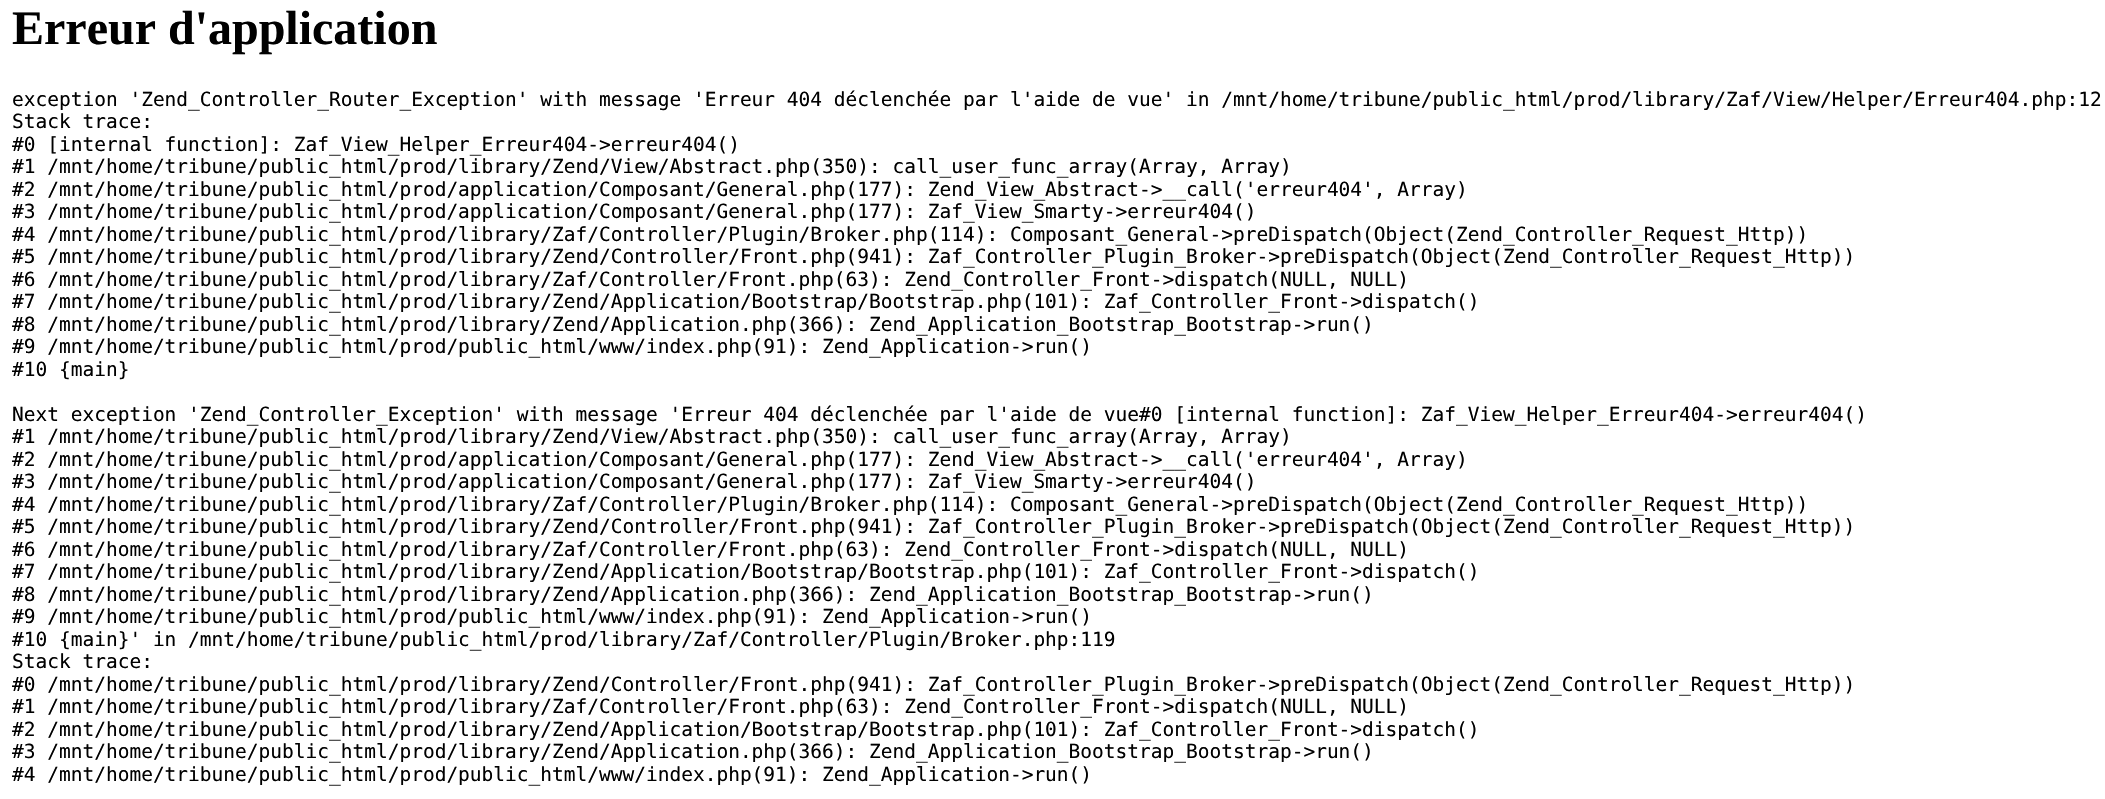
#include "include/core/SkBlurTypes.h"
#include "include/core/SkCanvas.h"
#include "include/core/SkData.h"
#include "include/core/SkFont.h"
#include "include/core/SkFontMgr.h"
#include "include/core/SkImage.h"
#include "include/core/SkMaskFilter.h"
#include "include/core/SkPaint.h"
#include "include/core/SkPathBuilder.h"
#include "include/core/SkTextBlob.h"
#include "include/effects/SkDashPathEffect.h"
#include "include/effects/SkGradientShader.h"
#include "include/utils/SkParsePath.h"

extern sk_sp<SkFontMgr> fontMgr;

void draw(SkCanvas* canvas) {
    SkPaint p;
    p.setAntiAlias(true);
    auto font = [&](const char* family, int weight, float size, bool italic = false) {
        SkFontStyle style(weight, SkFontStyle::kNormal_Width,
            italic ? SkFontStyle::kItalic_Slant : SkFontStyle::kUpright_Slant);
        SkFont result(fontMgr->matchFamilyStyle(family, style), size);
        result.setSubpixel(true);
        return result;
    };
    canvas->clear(0xFFFFFFFF);
    auto font1 = font("Liberation Serif", 700, 48);
    p.setColor(0xFF000000);
    canvas->drawString("Erreur d'application", 12, 44, font1, p);
    auto font2 = font("DejaVu Sans Mono", 400, 19.5f);
    {
        const struct { const char* s; float x, y; } items[] = {
            {"exception 'Zend_Controller_Router_Exception' with message 'Erreur 404 déclenchée par l'aide de vue' in /mnt/home/tribune/public_html/prod/library/Zaf/View/Helper/Erreur404.php:12", 12, 106},
            {"Stack trace:", 12, 128},
            {"#0 [internal function]: Zaf_View_Helper_Erreur404->erreur404()", 12, 151},
            {"#1 /mnt/home/tribune/public_html/prod/library/Zend/View/Abstract.php(350): call_user_func_array(Array, Array)", 12, 173},
            {"#2 /mnt/home/tribune/public_html/prod/application/Composant/General.php(177): Zend_View_Abstract->__call('erreur404', Array)", 12, 196},
            {"#3 /mnt/home/tribune/public_html/prod/application/Composant/General.php(177): Zaf_View_Smarty->erreur404()", 12, 218},
            {"#4 /mnt/home/tribune/public_html/prod/library/Zaf/Controller/Plugin/Broker.php(114): Composant_General->preDispatch(Object(Zend_Controller_Request_Http))", 12, 241},
            {"#5 /mnt/home/tribune/public_html/prod/library/Zend/Controller/Front.php(941): Zaf_Controller_Plugin_Broker->preDispatch(Object(Zend_Controller_Request_Http))", 12, 263},
            {"#6 /mnt/home/tribune/public_html/prod/library/Zaf/Controller/Front.php(63): Zend_Controller_Front->dispatch(NULL, NULL)", 12, 286},
            {"#7 /mnt/home/tribune/public_html/prod/library/Zend/Application/Bootstrap/Bootstrap.php(101): Zaf_Controller_Front->dispatch()", 12, 308},
            {"#8 /mnt/home/tribune/public_html/prod/library/Zend/Application.php(366): Zend_Application_Bootstrap_Bootstrap->run()", 12, 331},
            {"#9 /mnt/home/tribune/public_html/prod/public_html/www/index.php(91): Zend_Application->run()", 12, 353},
            {"#10 {main}", 12, 376},
            {"Next exception 'Zend_Controller_Exception' with message 'Erreur 404 déclenchée par l'aide de vue#0 [internal function]: Zaf_View_Helper_Erreur404->erreur404()", 12, 421},
            {"#1 /mnt/home/tribune/public_html/prod/library/Zend/View/Abstract.php(350): call_user_func_array(Array, Array)", 12, 443},
            {"#2 /mnt/home/tribune/public_html/prod/application/Composant/General.php(177): Zend_View_Abstract->__call('erreur404', Array)", 12, 466},
            {"#3 /mnt/home/tribune/public_html/prod/application/Composant/General.php(177): Zaf_View_Smarty->erreur404()", 12, 488},
            {"#4 /mnt/home/tribune/public_html/prod/library/Zaf/Controller/Plugin/Broker.php(114): Composant_General->preDispatch(Object(Zend_Controller_Request_Http))", 12, 511},
            {"#5 /mnt/home/tribune/public_html/prod/library/Zend/Controller/Front.php(941): Zaf_Controller_Plugin_Broker->preDispatch(Object(Zend_Controller_Request_Http))", 12, 533},
            {"#6 /mnt/home/tribune/public_html/prod/library/Zaf/Controller/Front.php(63): Zend_Controller_Front->dispatch(NULL, NULL)", 12, 556},
            {"#7 /mnt/home/tribune/public_html/prod/library/Zend/Application/Bootstrap/Bootstrap.php(101): Zaf_Controller_Front->dispatch()", 12, 578},
            {"#8 /mnt/home/tribune/public_html/prod/library/Zend/Application.php(366): Zend_Application_Bootstrap_Bootstrap->run()", 12, 601},
            {"#9 /mnt/home/tribune/public_html/prod/public_html/www/index.php(91): Zend_Application->run()", 12, 623},
            {"#10 {main}' in /mnt/home/tribune/public_html/prod/library/Zaf/Controller/Plugin/Broker.php:119", 12, 646},
            {"Stack trace:", 12, 668},
            {"#0 /mnt/home/tribune/public_html/prod/library/Zend/Controller/Front.php(941): Zaf_Controller_Plugin_Broker->preDispatch(Object(Zend_Controller_Request_Http))", 12, 691},
            {"#1 /mnt/home/tribune/public_html/prod/library/Zaf/Controller/Front.php(63): Zend_Controller_Front->dispatch(NULL, NULL)", 12, 713},
            {"#2 /mnt/home/tribune/public_html/prod/library/Zend/Application/Bootstrap/Bootstrap.php(101): Zaf_Controller_Front->dispatch()", 12, 736},
            {"#3 /mnt/home/tribune/public_html/prod/library/Zend/Application.php(366): Zend_Application_Bootstrap_Bootstrap->run()", 12, 758},
            {"#4 /mnt/home/tribune/public_html/prod/public_html/www/index.php(91): Zend_Application->run()", 12, 781},
        };
        for (auto [s, x, y] : items) {
            canvas->drawString(s, x, y, font2, p);
        }
    }
}
